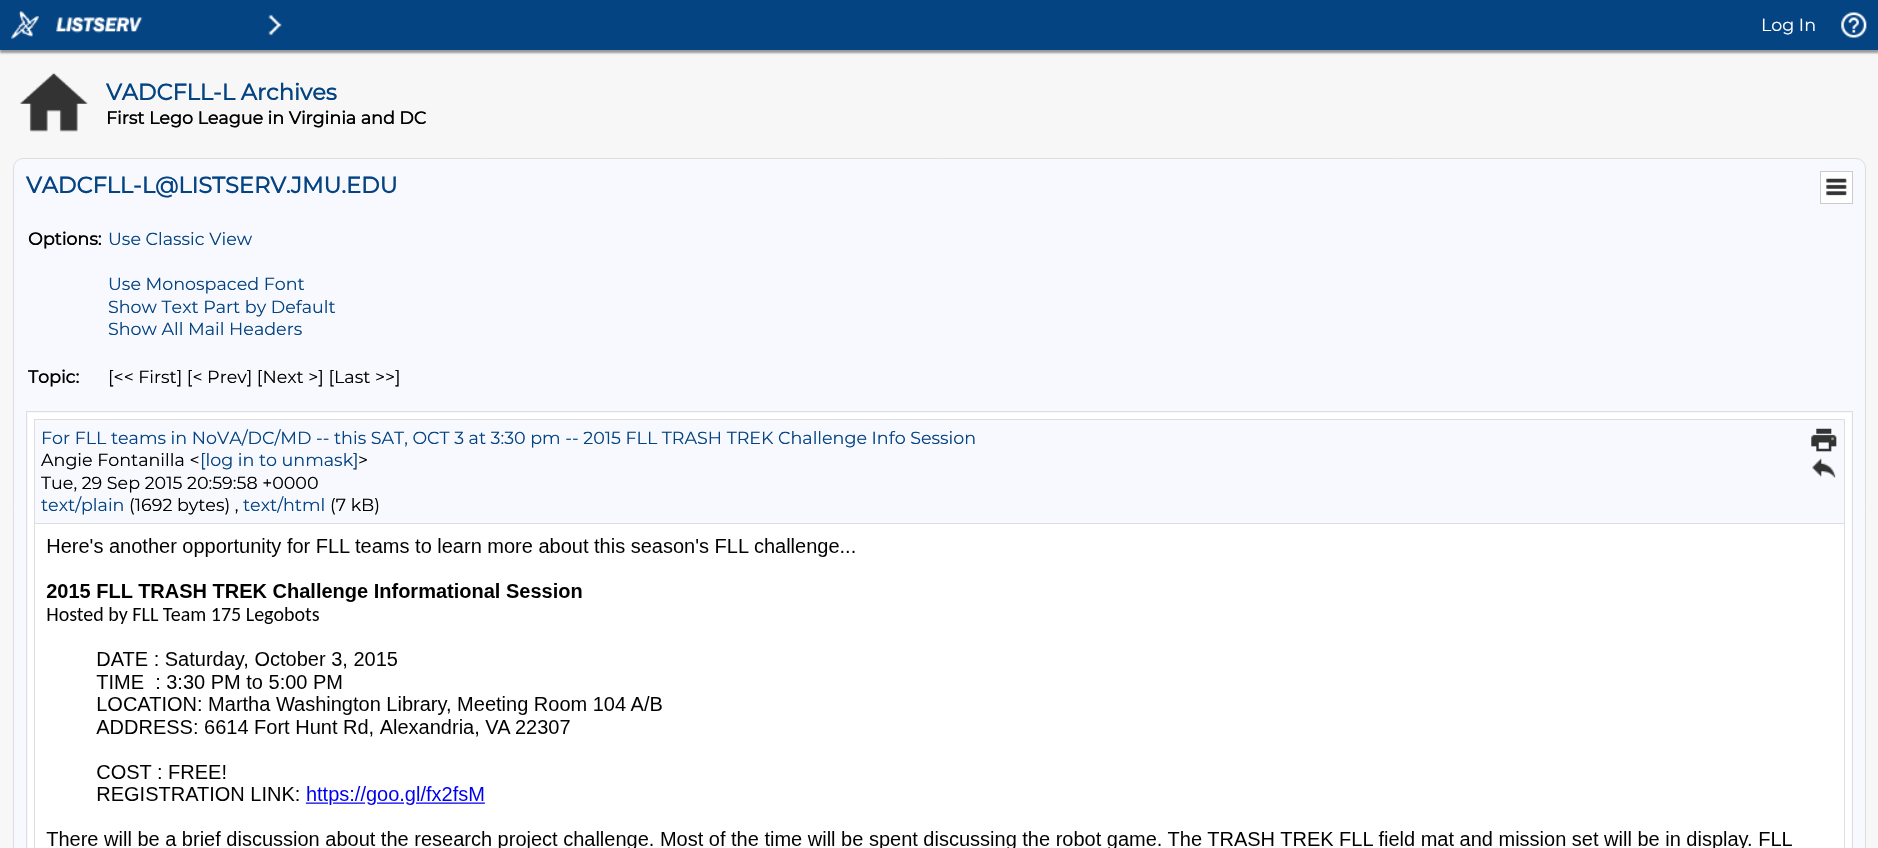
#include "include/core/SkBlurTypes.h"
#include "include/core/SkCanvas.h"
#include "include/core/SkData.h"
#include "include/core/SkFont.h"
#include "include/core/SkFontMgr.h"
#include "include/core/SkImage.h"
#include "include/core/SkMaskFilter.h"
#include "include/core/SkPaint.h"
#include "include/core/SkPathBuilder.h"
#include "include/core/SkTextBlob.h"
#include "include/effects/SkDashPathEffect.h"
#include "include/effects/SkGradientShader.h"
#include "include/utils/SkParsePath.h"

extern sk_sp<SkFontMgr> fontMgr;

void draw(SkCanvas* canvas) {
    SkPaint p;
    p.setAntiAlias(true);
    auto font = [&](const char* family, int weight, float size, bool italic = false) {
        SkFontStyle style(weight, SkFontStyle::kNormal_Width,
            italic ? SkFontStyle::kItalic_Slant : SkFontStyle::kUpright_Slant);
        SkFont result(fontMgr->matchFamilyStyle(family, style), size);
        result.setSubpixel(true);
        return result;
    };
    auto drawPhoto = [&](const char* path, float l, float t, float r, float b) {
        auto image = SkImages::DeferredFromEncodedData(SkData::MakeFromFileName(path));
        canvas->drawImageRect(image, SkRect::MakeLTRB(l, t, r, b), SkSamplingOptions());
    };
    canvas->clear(0xFFF7F7F7);
    p.setColor(0xFF999999);
    p.setMaskFilter(SkMaskFilter::MakeBlur(kNormal_SkBlurStyle, 1));
    canvas->drawRect(SkRect::MakeLTRB(0, 3, 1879, 53), p);
    p.setMaskFilter(nullptr);
    p.setColor(0xFF054483);
    canvas->drawRect(SkRect::MakeLTRB(0, 0, 1878, 50), p);
    drawPhoto("media/1.png", 11, 11, 39, 39);
    drawPhoto("media/2.png", 56, 17, 143, 33);
    drawPhoto("media/3.png", 268, 14, 282, 36);
    auto font1 = font("Montserrat", 100, 17.5f);
    p.setColor(0xFFFFFFFF);
    canvas->drawString("Log In", 1761, 31, font1, p);
    drawPhoto("media/4.png", 1841, 12, 1867, 38);
    drawPhoto("media/5.png", 20, 73, 88, 132);
    auto font2 = font("Montserrat", 700, 22.5f);
    p.setColor(0xFF054483);
    canvas->drawString("VADCFLL-L Archives", 106, 100, font2, p);
    auto font3 = font("Montserrat", 700, 17.5f);
    p.setColor(0xFF000000);
    canvas->drawString("First Lego League in Virginia and DC", 106, 124, font3, p);
    p.setColor(0xFFF7F9FE);
    canvas->drawRoundRect(SkRect::MakeLTRB(13.5f, 158.5f, 1865.5f, 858.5f), 9.5f, 9.5f, p);
    p.setStyle(SkPaint::kStroke_Style);
    p.setStrokeWidth(1);
    p.setColor(0xFFDEDEDE);
    canvas->drawRoundRect(SkRect::MakeLTRB(13.5f, 158.5f, 1865.5f, 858.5f), 9.5f, 9.5f, p);
    p.setStyle(SkPaint::kFill_Style);
    p.setColor(0xFF054483);
    canvas->drawString("VADCFLL-L@LISTSERV.JMU.EDU", 26, 193, font2, p);
    p.setColor(0xFFFFFFFF);
    canvas->drawRect(SkRect::MakeLTRB(1820.5f, 171.5f, 1852.5f, 203.5f), p);
    p.setStyle(SkPaint::kStroke_Style);
    p.setColor(0xFFCCCCCC);
    canvas->drawRect(SkRect::MakeLTRB(1820.5f, 171.5f, 1852.5f, 203.5f), p);
    drawPhoto("media/6.png", 1826, 178, 1847, 196);
    p.setStyle(SkPaint::kFill_Style);
    p.setColor(0xFF000000);
    canvas->drawString("Options:", 28, 245, font3, p);
    p.setColor(0xFF054483);
    {
        const struct { const char* s; float x, y; } items[] = {
            {"Use Classic View", 108, 245},
            {"Use Monospaced Font", 108, 290},
            {"Show Text Part by Default", 108, 313},
            {"Show All Mail Headers", 108, 335},
        };
        for (auto [s, x, y] : items) {
            canvas->drawString(s, x, y, font1, p);
        }
    }
    p.setColor(0xFF000000);
    canvas->drawString("Topic:", 28, 383, font3, p);
    canvas->drawString("[<< First] [< Prev] [Next >] [Last >>]", 108, 383, font1, p);
    p.setStyle(SkPaint::kStroke_Style);
    p.setColor(0xFFDEDEDE);
    canvas->drawRect(SkRect::MakeLTRB(26.5f, 411.5f, 1852.5f, 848.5f), p);
    p.setStyle(SkPaint::kFill_Style);
    p.setColor(0xFFFFFFFF);
    canvas->drawRect(SkRect::MakeLTRB(28, 413, 1851, 848), p);
    p.setStyle(SkPaint::kStroke_Style);
    p.setColor(0xFFDEDEDE);
    canvas->drawRect(SkRect::MakeLTRB(34.5f, 419.5f, 1844.5f, 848.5f), p);
    p.setStyle(SkPaint::kFill_Style);
    p.setColor(0xFFF7F9FE);
    canvas->drawRect(SkRect::MakeLTRB(35, 420, 1844, 523), p);
    p.setColor(0xFFDEDEDE);
    canvas->drawRect(SkRect::MakeLTRB(35, 523, 1844, 524), p);
    p.setColor(0xFF054483);
    canvas->drawString("For FLL teams in NoVA/DC/MD -- this SAT, OCT 3 at 3:30 pm -- 2015 FLL TRASH TREK Challenge Info Session", 41, 444, font1, p);
    drawPhoto("media/7.png", 1811, 428, 1837, 452);
    drawPhoto("media/8.png", 1812, 458, 1836, 478);
    p.setColor(0xFF000000);
    canvas->drawString("Angie Fontanilla <", 41, 466, font1, p);
    p.setColor(0xFF054483);
    canvas->drawString("[log in to unmask]", 200, 466, font1, p);
    p.setColor(0xFF000000);
    canvas->drawString(">", 358, 466, font1, p);
    canvas->drawString("Tue, 29 Sep 2015 20:59:58 +0000", 41, 489, font1, p);
    p.setColor(0xFF054483);
    canvas->drawString("text/plain", 41, 511, font1, p);
    p.setColor(0xFF000000);
    canvas->drawString("(1692 bytes) ,", 129, 511, font1, p);
    p.setColor(0xFF054483);
    canvas->drawString("text/html", 243, 511, font1, p);
    p.setColor(0xFF000000);
    canvas->drawString("(7 kB)", 330, 511, font1, p);
    drawPhoto("media/9.png", 46, 538, 1792, 848);
}
